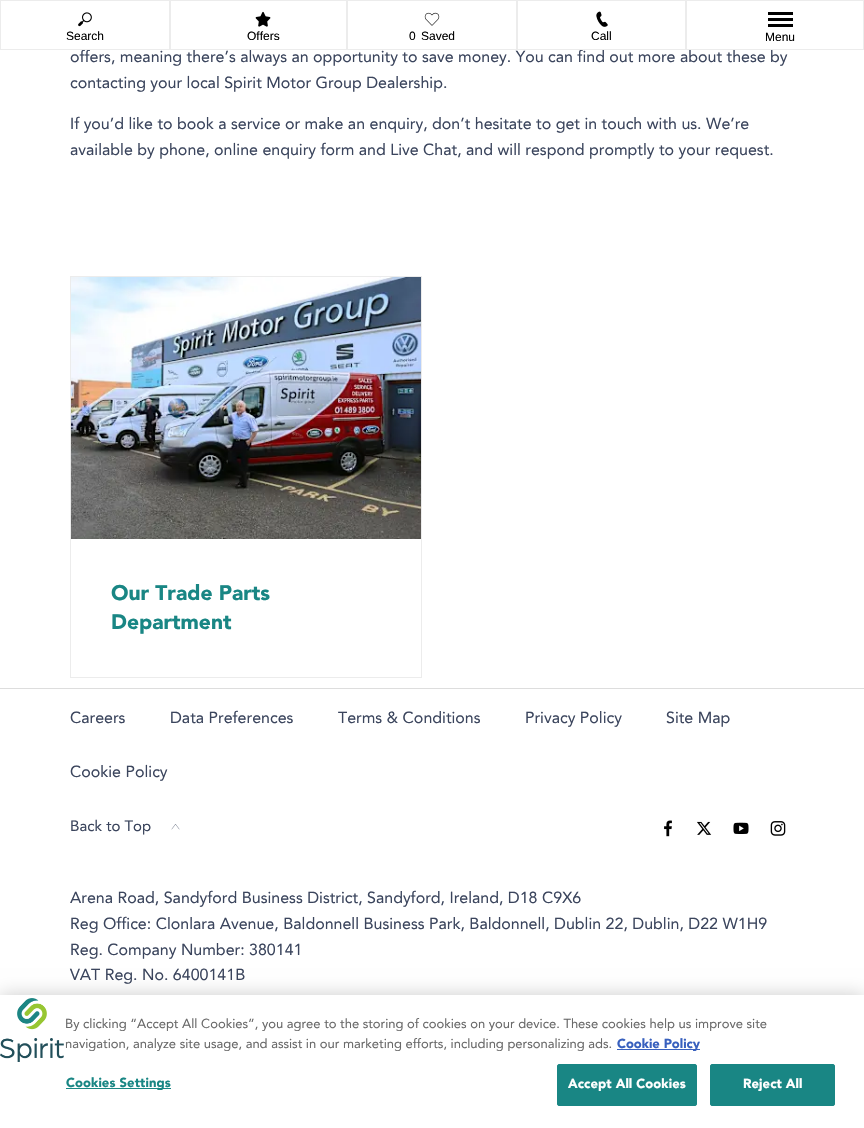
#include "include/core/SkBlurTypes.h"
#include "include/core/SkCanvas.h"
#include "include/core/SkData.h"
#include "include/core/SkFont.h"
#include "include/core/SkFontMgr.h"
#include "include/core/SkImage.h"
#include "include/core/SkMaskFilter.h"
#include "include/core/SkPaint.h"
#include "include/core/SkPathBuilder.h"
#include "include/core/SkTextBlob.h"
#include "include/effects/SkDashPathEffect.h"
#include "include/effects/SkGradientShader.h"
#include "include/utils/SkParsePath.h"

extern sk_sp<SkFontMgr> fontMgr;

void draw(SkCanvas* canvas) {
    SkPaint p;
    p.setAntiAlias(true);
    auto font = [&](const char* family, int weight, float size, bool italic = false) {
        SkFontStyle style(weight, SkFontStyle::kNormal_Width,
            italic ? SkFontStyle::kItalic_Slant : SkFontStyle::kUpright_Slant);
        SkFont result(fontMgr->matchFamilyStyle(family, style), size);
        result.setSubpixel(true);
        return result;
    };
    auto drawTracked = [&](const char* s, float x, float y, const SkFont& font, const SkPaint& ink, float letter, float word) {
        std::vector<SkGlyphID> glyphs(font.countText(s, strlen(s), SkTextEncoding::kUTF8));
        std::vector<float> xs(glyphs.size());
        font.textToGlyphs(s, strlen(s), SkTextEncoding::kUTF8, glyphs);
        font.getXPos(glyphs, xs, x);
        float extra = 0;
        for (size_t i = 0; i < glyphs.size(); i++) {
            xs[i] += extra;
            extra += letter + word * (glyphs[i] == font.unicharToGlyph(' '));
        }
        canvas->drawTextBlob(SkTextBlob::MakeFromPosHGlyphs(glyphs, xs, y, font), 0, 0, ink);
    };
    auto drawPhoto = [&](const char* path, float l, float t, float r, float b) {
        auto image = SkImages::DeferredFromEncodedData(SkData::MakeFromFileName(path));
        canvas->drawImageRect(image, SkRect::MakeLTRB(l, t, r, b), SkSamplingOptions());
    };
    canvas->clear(0xFFFFFFFF);
    auto font1 = font("Avenir", 400, 16);
    p.setColor(0xFF3B455D);
    canvas->drawString("offers, meaning there’s always an opportunity to save money. You can find out more about these by", 70, 62, font1, p);
    p.setStyle(SkPaint::kStroke_Style);
    p.setStrokeWidth(1);
    p.setColor(0xFFECECEC);
    canvas->drawRect(SkRect::MakeLTRB(0.5f, 0.5f, 169.5f, 49.5f), p);
    drawPhoto("media/1.png", 78, 12, 92, 27);
    auto font2 = font("Liberation Sans", 400, 12);
    p.setStyle(SkPaint::kFill_Style);
    p.setColor(0xFF000000);
    canvas->drawString("Search", 66, 40, font2, p);
    p.setStyle(SkPaint::kStroke_Style);
    p.setColor(0xFFECECEC);
    canvas->drawRect(SkRect::MakeLTRB(170.5f, 0.5f, 346.5f, 49.5f), p);
    drawPhoto("media/2.png", 255, 11, 271, 27);
    p.setStyle(SkPaint::kFill_Style);
    p.setColor(0xFF000000);
    canvas->drawString("Offers", 247, 40, font2, p);
    p.setStyle(SkPaint::kStroke_Style);
    p.setColor(0xFFECECEC);
    canvas->drawRect(SkRect::MakeLTRB(347.5f, 0.5f, 516.5f, 49.5f), p);
    drawPhoto("media/3.png", 424, 12, 440, 26);
    p.setStyle(SkPaint::kFill_Style);
    p.setColor(0xFF000000);
    canvas->drawString("0", 409, 40, font2, p);
    canvas->drawString("Saved", 421, 40, font2, p);
    p.setStyle(SkPaint::kStroke_Style);
    p.setColor(0xFFECECEC);
    canvas->drawRect(SkRect::MakeLTRB(517.5f, 0.5f, 685.5f, 49.5f), p);
    drawPhoto("media/4.png", 596, 11, 608, 27);
    p.setStyle(SkPaint::kFill_Style);
    p.setColor(0xFF000000);
    canvas->drawString("Call", 591, 40, font2, p);
    p.setStyle(SkPaint::kStroke_Style);
    p.setColor(0xFFECECEC);
    canvas->drawRect(SkRect::MakeLTRB(686.5f, 0.5f, 863.5f, 49.5f), p);
    p.setStyle(SkPaint::kFill_Style);
    {
        const struct { float l, t, r, b; SkColor color; } items[] = {
            {768, 24, 793, 27, 0xFF000000},
            {768, 12, 793, 15, 0xFF000000},
            {768, 18, 793, 21, 0xFF000000},
        };
        for (auto [l, t, r, b, color] : items) {
            p.setColor(color);
            canvas->drawRect(SkRect::MakeLTRB(l, t, r, b), p);
        }
    }
    canvas->drawString("Menu", 765, 41, font2, p);
    p.setColor(0xFF3B455D);
    {
        const struct { const char* s; float x, y; } items[] = {
            {"contacting your local Spirit Motor Group Dealership.", 70, 88},
            {"If you’d like to book a service or make an enquiry, don’t hesitate to get in touch with us. We’re", 70, 129},
            {"available by phone, online enquiry form and Live Chat, and will respond promptly to your request.", 70, 155},
        };
        for (auto [s, x, y] : items) {
            canvas->drawString(s, x, y, font1, p);
        }
    }
    p.setStyle(SkPaint::kStroke_Style);
    p.setColor(0xFFECECEC);
    canvas->drawRect(SkRect::MakeLTRB(70.5f, 276.5f, 421.5f, 677.5f), p);
    drawPhoto("media/5.png", 71, 277, 421, 539);
    auto font3 = font("Avenir", 900, 21);
    p.setStyle(SkPaint::kFill_Style);
    p.setColor(0xFF198684);
    canvas->drawString("Our Trade Parts", 111, 600, font3, p);
    canvas->drawString("Department", 111, 629, font3, p);
    p.setColor(0xFFDDDDDD);
    canvas->drawRect(SkRect::MakeLTRB(0, 688, 864, 689), p);
    p.setColor(0xFF3B455D);
    {
        const struct { const char* s; float x, y; } items[] = {
            {"Careers", 70, 723},
            {"Data Preferences", 170, 723},
            {"Terms & Conditions", 338, 723},
            {"Privacy Policy", 525, 723},
            {"Site Map", 666, 723},
            {"Cookie Policy", 70, 777},
        };
        for (auto [s, x, y] : items) {
            canvas->drawString(s, x, y, font1, p);
        }
    }
    auto font4 = font("Avenir", 400, 15);
    canvas->drawString("Back to Top", 70, 831, font4, p);
    drawPhoto("media/6.png", 171, 824, 180, 830);
    drawPhoto("media/7.png", 664, 820, 672, 837);
    drawPhoto("media/8.png", 697, 821, 712, 835);
    drawPhoto("media/9.png", 733, 822, 749, 834);
    drawPhoto("media/10.png", 770, 821, 786, 836);
    {
        const struct { const char* s; float x, y; } items[] = {
            {"Arena Road, Sandyford Business District, Sandyford, Ireland, D18 C9X6", 70, 903},
            {"Reg Office: Clonlara Avenue, Baldonnell Business Park, Baldonnell, Dublin 22, Dublin, D22 W1H9", 70, 929},
            {"Reg. Company Number: 380141", 70, 955},
            {"VAT Reg. No. 6400141B", 70, 980},
        };
        for (auto [s, x, y] : items) {
            canvas->drawString(s, x, y, font1, p);
        }
    }
    p.setColor(0x33000000);
    p.setMaskFilter(SkMaskFilter::MakeBlur(kNormal_SkBlurStyle, 9));
    canvas->drawRect(SkRect::MakeLTRB(0, 995, 864, 1128), p);
    p.setMaskFilter(nullptr);
    p.setColor(0xFFFFFFFF);
    canvas->drawRect(SkRect::MakeLTRB(0, 995, 864, 1128), p);
    drawPhoto("media/11.png", 0, 998, 64, 1062);
    auto font5 = font("Avenir", 400, 13);
    p.setColor(0xFF696969);
    canvas->drawString("By clicking “Accept All Cookies”, you agree to the storing of cookies on your device. These cookies help us improve site", 65, 1028, font5, p);
    canvas->drawString("navigation, analyze site usage, and assist in our marketing efforts, including personalizing ads.", 65, 1048, font5, p);
    p.setColor(0xFF3860BE);
    canvas->drawRect(SkRect::MakeLTRB(617, 1049, 700, 1050), p);
    auto font6 = font("Avenir", 900, 13);
    canvas->drawString("Cookie Policy", 617, 1048, font6, p);
    p.setColor(0xFF198684);
    canvas->drawRect(SkRect::MakeLTRB(66, 1088, 171, 1089), p);
    drawTracked("Cookies Settings", 66, 1087, font6, p, 0.1f, 0);
    canvas->drawRoundRect(SkRect::MakeLTRB(557.5f, 1064.5f, 696.5f, 1105.5f), 1.5f, 1.5f, p);
    p.setStyle(SkPaint::kStroke_Style);
    canvas->drawRoundRect(SkRect::MakeLTRB(557.5f, 1064.5f, 696.5f, 1105.5f), 1.5f, 1.5f, p);
    p.setStyle(SkPaint::kFill_Style);
    p.setColor(0xFFFFFFFF);
    drawTracked("Accept All Cookies", 568, 1088, font6, p, 0.1f, 0);
    p.setColor(0xFF198684);
    canvas->drawRoundRect(SkRect::MakeLTRB(710.5f, 1064.5f, 834.5f, 1105.5f), 1.5f, 1.5f, p);
    p.setStyle(SkPaint::kStroke_Style);
    canvas->drawRoundRect(SkRect::MakeLTRB(710.5f, 1064.5f, 834.5f, 1105.5f), 1.5f, 1.5f, p);
    p.setStyle(SkPaint::kFill_Style);
    p.setColor(0xFFFFFFFF);
    drawTracked("Reject All", 743, 1088, font6, p, 0.1f, 0);
}
